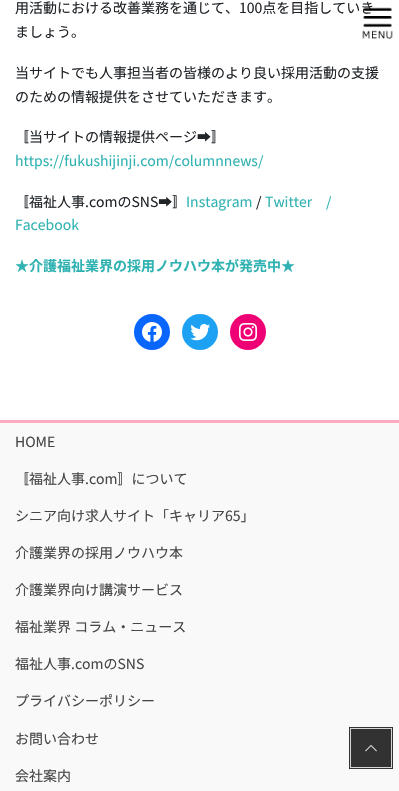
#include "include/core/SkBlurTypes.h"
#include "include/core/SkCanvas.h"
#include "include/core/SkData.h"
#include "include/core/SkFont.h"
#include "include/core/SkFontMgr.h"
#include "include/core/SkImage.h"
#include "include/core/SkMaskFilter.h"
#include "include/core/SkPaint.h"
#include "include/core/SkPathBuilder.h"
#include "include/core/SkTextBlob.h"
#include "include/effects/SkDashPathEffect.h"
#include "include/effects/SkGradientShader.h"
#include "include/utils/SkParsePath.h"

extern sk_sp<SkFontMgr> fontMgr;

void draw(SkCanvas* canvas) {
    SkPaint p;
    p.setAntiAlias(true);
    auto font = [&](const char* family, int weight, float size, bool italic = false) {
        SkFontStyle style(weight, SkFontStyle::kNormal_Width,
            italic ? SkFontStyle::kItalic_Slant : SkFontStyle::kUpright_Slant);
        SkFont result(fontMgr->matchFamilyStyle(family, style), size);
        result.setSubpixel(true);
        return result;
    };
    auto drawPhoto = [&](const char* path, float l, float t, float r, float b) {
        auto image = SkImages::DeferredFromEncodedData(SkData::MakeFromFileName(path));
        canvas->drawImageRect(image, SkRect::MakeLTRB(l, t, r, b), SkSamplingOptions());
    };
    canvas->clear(0xFFFFFFFF);
    auto font1 = font("Noto Sans JP", 400, 14);
    p.setColor(0xFF212529);
    {
        const struct { const char* s; float x, y; } items[] = {
            {"用活動における改善業務を通じて、100点を目指していき", 15, 13},
            {"ましょう。", 15, 37},
            {"当サイトでも人事担当者の皆様のより良い採用活動の支援", 15, 78},
            {"のための情報提供をさせていただきます。", 15, 102},
            {"〚当サイトの情報提供ページ➡〛", 15, 142},
        };
        for (auto [s, x, y] : items) {
            canvas->drawString(s, x, y, font1, p);
        }
    }
    p.setColor(0xFF31B2B2);
    canvas->drawString("https://fukushijinji.com/columnnews/", 15, 166, font1, p);
    p.setColor(0xFF212529);
    canvas->drawString("〚福祉人事.comのSNS➡〛", 15, 207, font1, p);
    p.setColor(0xFF31B2B2);
    canvas->drawString("Instagram", 186, 207, font1, p);
    p.setColor(0xFF212529);
    canvas->drawString("/", 256, 207, font1, p);
    p.setColor(0xFF31B2B2);
    {
        const struct { const char* s; float x, y; } items[] = {
            {"Twitter", 265, 207},
            {"/", 326, 207},
            {"Facebook", 15, 230},
        };
        for (auto [s, x, y] : items) {
            canvas->drawString(s, x, y, font1, p);
        }
    }
    auto font2 = font("Noto Sans JP", 700, 14);
    canvas->drawString("★介護福祉業界の採用ノウハウ本が発売中★", 15, 271, font2, p);
    p.setColor(0xFF0866FF);
    canvas->drawCircle(152, 332, 18, p);
    drawPhoto("media/1.png", 142, 322, 162, 342);
    p.setColor(0xFF1DA1F2);
    canvas->drawCircle(200, 332, 18, p);
    drawPhoto("media/2.png", 190, 324, 210, 341);
    p.setColor(0xFFF00075);
    canvas->drawCircle(248, 332, 18, p);
    drawPhoto("media/3.png", 239, 323, 257, 341);
    drawPhoto("media/4.png", 362, 7, 393, 39);
    p.setColor(0xFFF9F9F9);
    canvas->drawRect(SkRect::MakeLTRB(0, 423, 399, 791), p);
    p.setColor(0xFFFCABC2);
    canvas->drawRect(SkRect::MakeLTRB(0, 420, 399, 423), p);
    p.setColor(0xFF464646);
    {
        const struct { const char* s; float x, y; } items[] = {
            {"HOME", 15, 447},
            {"〚福祉人事.com〛について", 15, 484},
            {"シニア向け求人サイト「キャリア65」", 15, 521},
            {"介護業界の採用ノウハウ本", 15, 558},
            {"介護業界向け講演サービス", 15, 595},
            {"福祉業界 コラム・ニュース", 15, 632},
            {"福祉人事.comのSNS", 15, 669},
            {"プライバシーポリシー", 15, 706},
            {"お問い合わせ", 15, 744},
            {"会社案内", 15, 781},
        };
        for (auto [s, x, y] : items) {
            canvas->drawString(s, x, y, font1, p);
        }
    }
    p.setStyle(SkPaint::kStroke_Style);
    p.setStrokeWidth(2);
    p.setColor(0xFF323232);
    canvas->drawRect(SkRect::MakeLTRB(350, 728, 392, 768), p);
    p.setStrokeWidth(1);
    p.setColor(0xFFD6D6D6);
    canvas->drawRect(SkRect::MakeLTRB(350.5f, 728.5f, 391.5f, 767.5f), p);
    p.setStyle(SkPaint::kFill_Style);
    p.setColor(0xFF323232);
    canvas->drawRect(SkRect::MakeLTRB(351, 729, 391, 767), p);
    drawPhoto("media/5.png", 365, 745, 377, 752);
}
